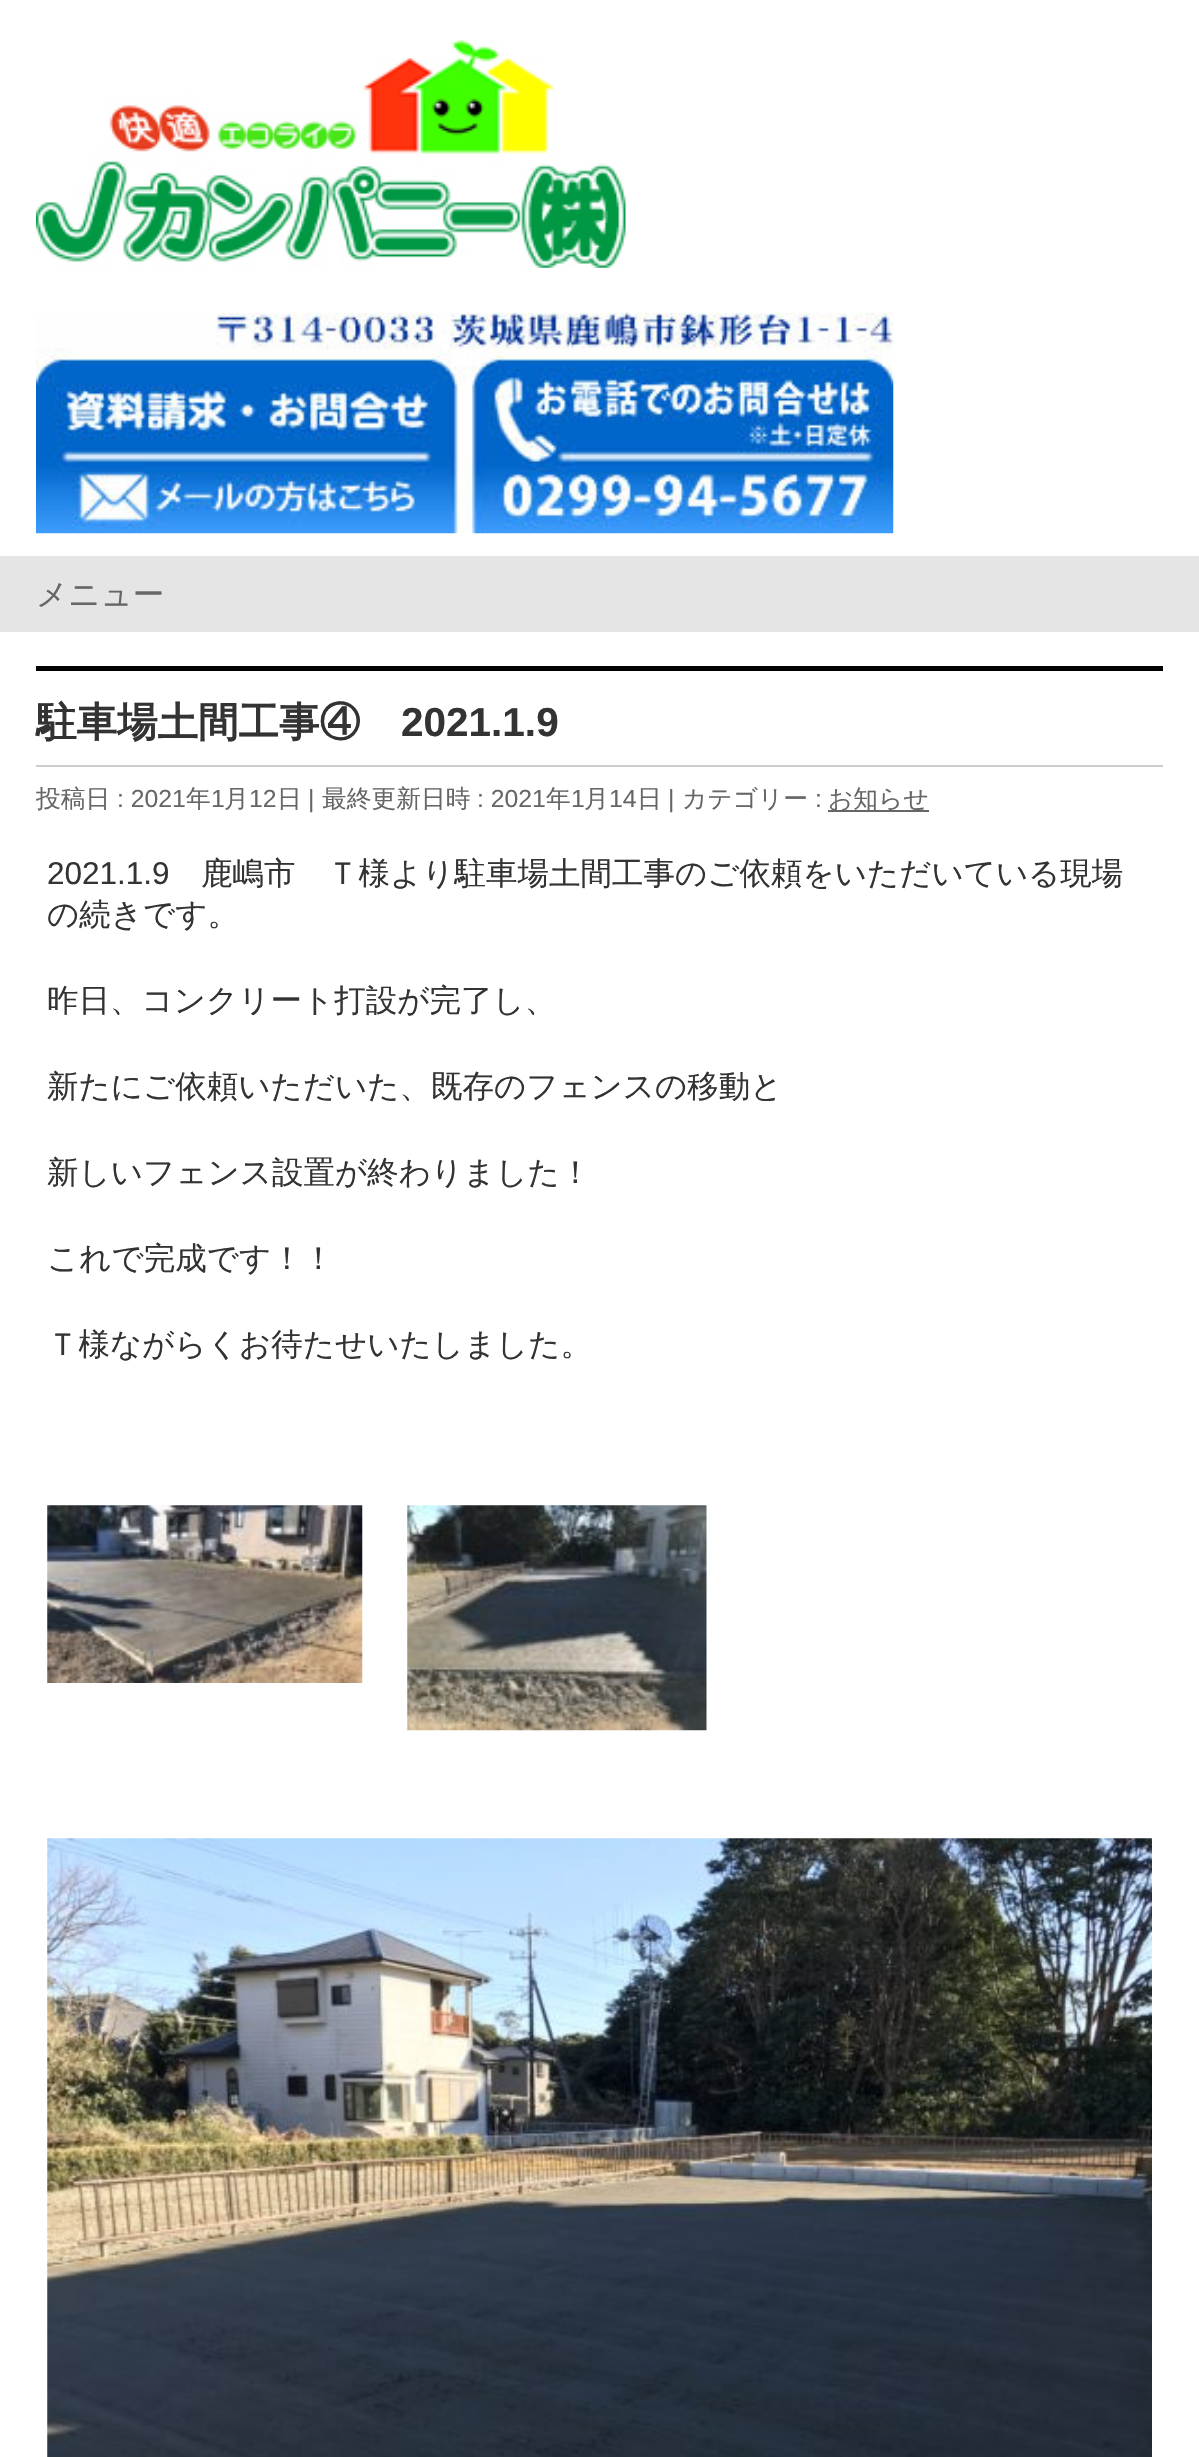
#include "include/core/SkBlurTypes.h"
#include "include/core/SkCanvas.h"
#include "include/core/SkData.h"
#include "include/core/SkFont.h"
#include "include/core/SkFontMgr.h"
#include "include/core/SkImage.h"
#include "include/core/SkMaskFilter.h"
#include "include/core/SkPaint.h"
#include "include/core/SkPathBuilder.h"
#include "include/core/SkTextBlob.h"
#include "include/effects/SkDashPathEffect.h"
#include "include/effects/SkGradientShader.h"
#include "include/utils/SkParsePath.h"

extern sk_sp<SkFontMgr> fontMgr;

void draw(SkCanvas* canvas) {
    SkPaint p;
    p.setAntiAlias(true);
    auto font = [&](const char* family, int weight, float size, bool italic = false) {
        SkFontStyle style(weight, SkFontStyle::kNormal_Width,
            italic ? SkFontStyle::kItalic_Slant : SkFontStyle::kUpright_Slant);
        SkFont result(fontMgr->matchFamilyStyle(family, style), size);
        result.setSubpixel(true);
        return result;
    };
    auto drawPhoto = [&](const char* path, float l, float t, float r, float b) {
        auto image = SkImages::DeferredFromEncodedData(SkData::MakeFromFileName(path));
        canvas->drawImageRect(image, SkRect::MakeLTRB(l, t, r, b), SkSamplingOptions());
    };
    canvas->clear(0xFFFFFFFF);
    drawPhoto("media/1.png", 36, 40, 626, 268);
    drawPhoto("media/2.png", 36, 312, 894, 534);
    p.setColor(0xFFE5E5E5);
    canvas->drawRect(SkRect::MakeLTRB(0, 556, 1199, 632), p);
    auto font1 = font("WenQuanYi Zen Hei", 500, 31.5f);
    p.setColor(0xFF666666);
    canvas->drawString("メニュー", 36, 605, font1, p);
    p.setColor(0xFF000000);
    canvas->drawRect(SkRect::MakeLTRB(36, 666, 1163, 671), p);
    p.setColor(0xFFCCCCCC);
    canvas->drawRect(SkRect::MakeLTRB(36, 765, 1163, 767), p);
    auto font2 = font("WenQuanYi Zen Hei", 700, 40.5f);
    p.setColor(0xFF333333);
    canvas->drawString("駐車場土間工事④", 36, 736, font2, p);
    auto font3 = font("Liberation Sans", 700, 40.5f);
    canvas->drawString("2021.1.9", 401, 736, font3, p);
    auto font4 = font("WenQuanYi Zen Hei", 500, 24.75f);
    p.setColor(0xFF666666);
    canvas->drawString("投稿日", 36, 807, font4, p);
    auto font5 = font("Liberation Sans", 400, 24.75f);
    canvas->drawString(": 2021", 117, 807, font5, p);
    canvas->drawString("年", 186, 807, font4, p);
    canvas->drawString("1", 211, 807, font5, p);
    canvas->drawString("月", 224, 807, font4, p);
    canvas->drawString("12", 249, 807, font5, p);
    canvas->drawString("日", 277, 807, font4, p);
    canvas->drawString("|", 308, 807, font5, p);
    canvas->drawString("最終更新日時", 322, 807, font4, p);
    canvas->drawString(": 2021", 477, 807, font5, p);
    canvas->drawString("年", 546, 807, font4, p);
    canvas->drawString("1", 571, 807, font5, p);
    canvas->drawString("月", 584, 807, font4, p);
    canvas->drawString("14", 609, 807, font5, p);
    canvas->drawString("日", 637, 807, font4, p);
    canvas->drawString("|", 668, 807, font5, p);
    canvas->drawString("カテゴリー", 682, 807, font4, p);
    canvas->drawString(":", 815, 807, font5, p);
    canvas->drawRect(SkRect::MakeLTRB(828, 810, 929, 812), p);
    canvas->drawString("お知らせ", 828, 807, font4, p);
    auto font6 = font("Liberation Sans", 400, 31.5f);
    p.setColor(0xFF333333);
    canvas->drawString("2021.1.9", 47, 884, font6, p);
    {
        const struct { const char* s; float x, y; } items[] = {
            {"鹿嶋市　Ｔ様より駐車場土間工事のご依頼をいただいている現場", 201, 884},
            {"の続きです。", 47, 925},
            {"昨日、コンクリート打設が完了し、", 47, 1011},
            {"新たにご依頼いただいた、既存のフェンスの移動と", 47, 1097},
            {"新しいフェンス設置が終わりました！", 47, 1183},
            {"これで完成です！！", 47, 1269},
            {"Ｔ様ながらくお待たせいたしました。", 47, 1355},
        };
        for (auto [s, x, y] : items) {
            canvas->drawString(s, x, y, font1, p);
        }
    }
    drawPhoto("media/3.png", 47, 1505, 363, 1683);
    drawPhoto("media/4.png", 407, 1505, 707, 1731);
    drawPhoto("media/5.png", 47, 1838, 1152, 2457);
}
